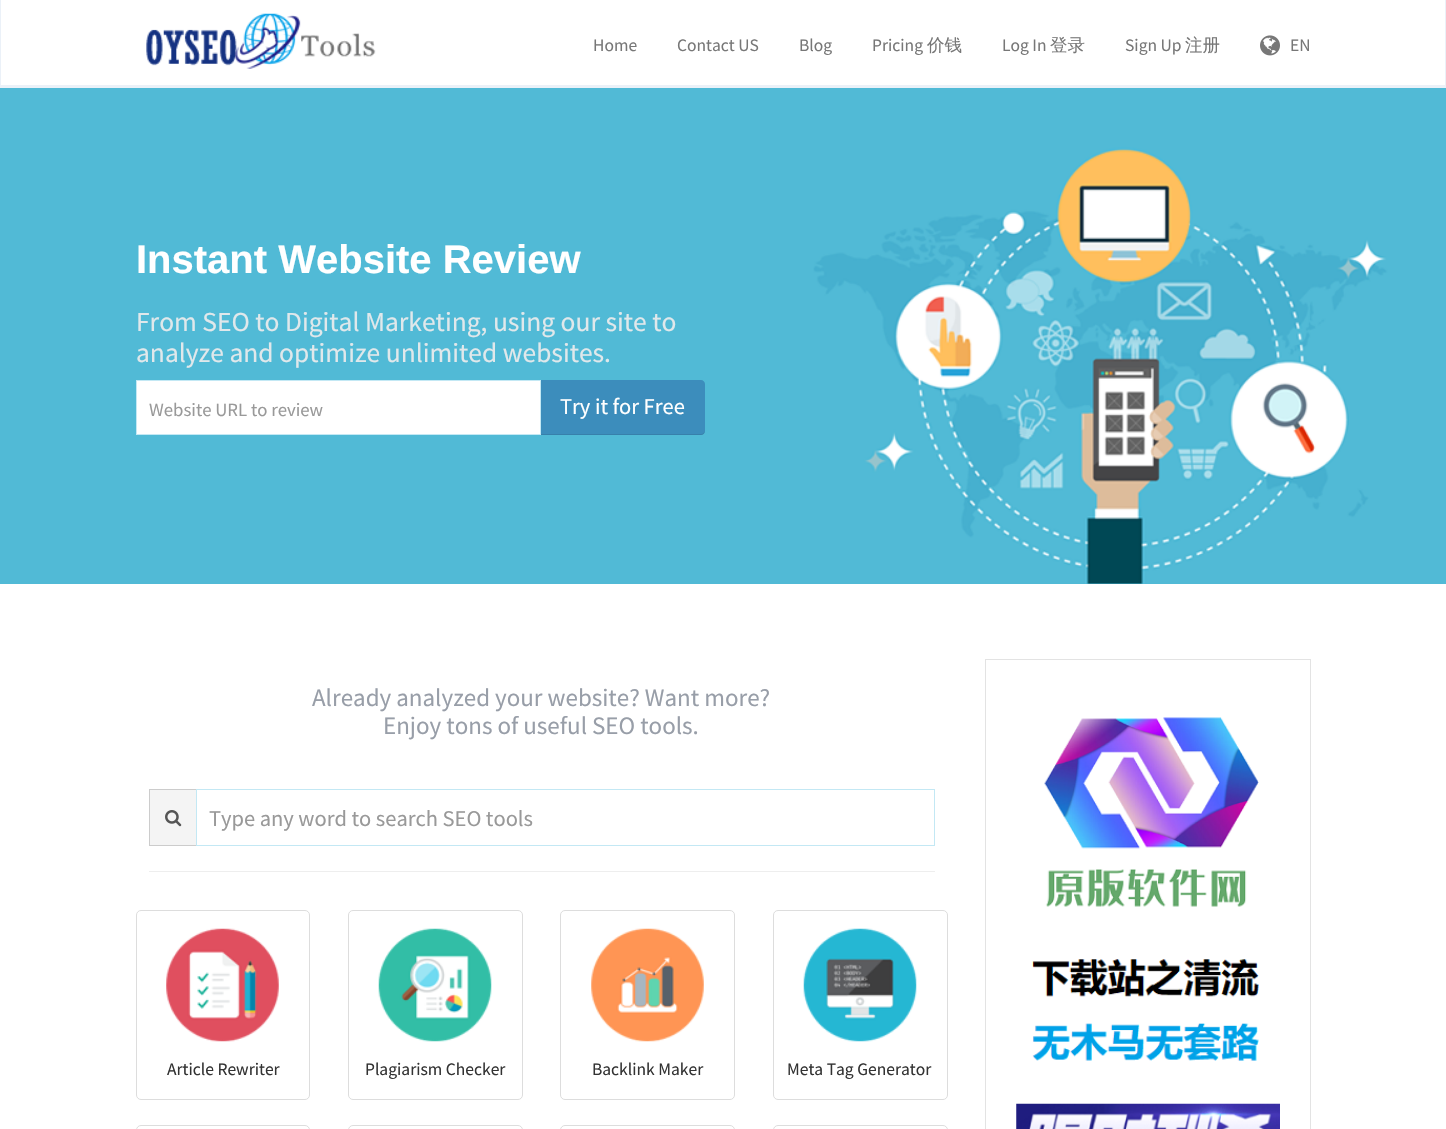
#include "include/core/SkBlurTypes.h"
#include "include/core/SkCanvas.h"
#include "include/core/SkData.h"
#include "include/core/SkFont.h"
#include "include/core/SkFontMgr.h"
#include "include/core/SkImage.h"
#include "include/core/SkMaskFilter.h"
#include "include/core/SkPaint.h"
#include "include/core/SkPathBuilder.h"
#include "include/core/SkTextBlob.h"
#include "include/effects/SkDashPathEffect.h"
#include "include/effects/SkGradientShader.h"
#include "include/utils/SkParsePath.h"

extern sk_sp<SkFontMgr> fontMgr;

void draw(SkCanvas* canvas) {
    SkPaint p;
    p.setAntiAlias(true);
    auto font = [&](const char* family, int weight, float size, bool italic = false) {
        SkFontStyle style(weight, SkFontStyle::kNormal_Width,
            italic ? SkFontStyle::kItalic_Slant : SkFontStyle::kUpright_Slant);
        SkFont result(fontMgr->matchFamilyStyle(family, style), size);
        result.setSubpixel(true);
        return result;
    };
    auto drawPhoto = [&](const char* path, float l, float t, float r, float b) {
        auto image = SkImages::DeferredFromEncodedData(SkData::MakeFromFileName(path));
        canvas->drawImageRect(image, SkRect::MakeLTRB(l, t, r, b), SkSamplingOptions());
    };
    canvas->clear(0xFFFFFFFF);
    {
        const struct { float l, t, r, b; SkColor color; } items[] = {
            {1445, 0, 1446, 88, 0xFFEBF1F8},
            {0, 85, 1446, 88, 0xFFEBF1F8},
            {0, 0, 1, 88, 0xFFEBF1F8},
        };
        for (auto [l, t, r, b, color] : items) {
            p.setColor(color);
            canvas->drawRect(SkRect::MakeLTRB(l, t, r, b), p);
        }
    }
    drawPhoto("media/1.png", 146, 13, 376, 69);
    auto font1 = font("Source Sans Pro", 400, 17.5f);
    p.setColor(0xFF777777);
    {
        const struct { const char* s; float x, y; } items[] = {
            {"Home", 593, 51},
            {"Contact US", 677, 51},
            {"Blog", 799, 51},
            {"Pricing", 872, 51},
        };
        for (auto [s, x, y] : items) {
            canvas->drawString(s, x, y, font1, p);
        }
    }
    auto font2 = font("WenQuanYi Zen Hei", 500, 17.5f);
    canvas->drawString("价钱", 927, 51, font2, p);
    canvas->drawString("Log In", 1002, 51, font1, p);
    canvas->drawString("登录", 1050, 51, font2, p);
    canvas->drawString("Sign Up", 1125, 51, font1, p);
    canvas->drawString("注册", 1185, 51, font2, p);
    drawPhoto("media/2.png", 1260, 35, 1280, 56);
    canvas->drawString("EN", 1290, 51, font1, p);
    p.setColor(0xFF51BAD6);
    canvas->drawRect(SkRect::MakeLTRB(0, 88, 1446, 584), p);
    auto font3 = font("Liberation Sans", 700, 40);
    p.setColor(0xFFFFFFFF);
    canvas->drawString("Instant Website Review", 136, 273, font3, p);
    auto font4 = font("Source Sans Pro", 400, 27.5f);
    p.setColor(0xFFE0E8EB);
    canvas->drawString("From SEO to Digital Marketing, using our site to", 136, 331, font4, p);
    canvas->drawString("analyze and optimize unlimited websites.", 136, 362, font4, p);
    p.setColor(0xFF3C8DBC);
    canvas->drawPath(SkPathBuilder().moveTo(540, 380).lineTo(701, 380).cubicTo(703, 380, 705, 382, 705, 384).lineTo(705, 431).cubicTo(705, 433, 703, 435, 701, 435).lineTo(540, 435).close().detach(), p);
    p.setColor(0x17000000);
    canvas->drawPath(SkPathBuilder().moveTo(540, 434).lineTo(540, 435).lineTo(701, 435).cubicTo(704, 435, 705, 433, 705, 430).cubicTo(705, 432, 703, 434, 701, 434).close().detach(), p);
    p.setColor(0xFFFFFFFF);
    canvas->drawRect(SkRect::MakeLTRB(136.5f, 380.5f, 540.5f, 434.5f), p);
    p.setStyle(SkPaint::kStroke_Style);
    p.setStrokeWidth(1);
    p.setColor(0xFFC3E8F4);
    canvas->drawRect(SkRect::MakeLTRB(136.5f, 380.5f, 540.5f, 434.5f), p);
    auto font5 = font("Source Sans Pro", 400, 18.75f);
    p.setStyle(SkPaint::kFill_Style);
    p.setColor(0xFF999999);
    canvas->drawString("Website URL to review", 149, 416, font5, p);
    auto font6 = font("Source Sans Pro", 400, 22.5f);
    p.setColor(0xFFFFFFFF);
    canvas->drawString("Try it for Free", 560, 414, font6, p);
    drawPhoto("media/3.png", 742, 88, 1446, 584);
    auto font7 = font("Source Sans Pro", 400, 25);
    p.setColor(0xFF989EA8);
    canvas->drawString("Already analyzed your website? Want more?", 312, 706, font7, p);
    canvas->drawString("Enjoy tons of useful SEO tools.", 383, 734, font7, p);
    {
        const struct { float l, t, r, b; SkColor color; } items[] = {
            {150, 790, 196, 845, 0xFFF4F4F4},
            {149, 789, 196, 790, 0xFFCCCCCC},
            {149, 845, 196, 846, 0xFFCCCCCC},
            {149, 789, 150, 846, 0xFFCCCCCC},
        };
        for (auto [l, t, r, b, color] : items) {
            p.setColor(color);
            canvas->drawRect(SkRect::MakeLTRB(l, t, r, b), p);
        }
    }
    drawPhoto("media/4.png", 165, 810, 182, 827);
    p.setStyle(SkPaint::kStroke_Style);
    p.setColor(0xFFC3E8F4);
    canvas->drawRect(SkRect::MakeLTRB(196.5f, 789.5f, 934.5f, 845.5f), p);
    p.setStyle(SkPaint::kFill_Style);
    p.setColor(0xFF999999);
    canvas->drawString("Type any word to search SEO tools", 209, 826, font6, p);
    p.setColor(0xFFEEEEEE);
    canvas->drawRect(SkRect::MakeLTRB(149, 871, 935, 872), p);
    p.setStyle(SkPaint::kStroke_Style);
    p.setColor(0xFFDDDDDD);
    canvas->drawRoundRect(SkRect::MakeLTRB(136.5f, 910.5f, 309.5f, 1099.5f), 4.5f, 4.5f, p);
    drawPhoto("media/5.png", 166, 928, 279, 1042);
    p.setStyle(SkPaint::kFill_Style);
    p.setColor(0xFF333333);
    canvas->drawString("Article Rewriter", 167, 1075, font1, p);
    p.setStyle(SkPaint::kStroke_Style);
    p.setColor(0xFFDDDDDD);
    canvas->drawRoundRect(SkRect::MakeLTRB(348.5f, 910.5f, 522.5f, 1099.5f), 4.5f, 4.5f, p);
    drawPhoto("media/6.png", 378, 928, 492, 1042);
    p.setStyle(SkPaint::kFill_Style);
    p.setColor(0xFF333333);
    canvas->drawString("Plagiarism Checker", 365, 1075, font1, p);
    p.setStyle(SkPaint::kStroke_Style);
    p.setColor(0xFFDDDDDD);
    canvas->drawRoundRect(SkRect::MakeLTRB(560.5f, 910.5f, 734.5f, 1099.5f), 4.5f, 4.5f, p);
    drawPhoto("media/7.png", 591, 928, 704, 1042);
    p.setStyle(SkPaint::kFill_Style);
    p.setColor(0xFF333333);
    canvas->drawString("Backlink Maker", 592, 1075, font1, p);
    p.setStyle(SkPaint::kStroke_Style);
    p.setColor(0xFFDDDDDD);
    canvas->drawRoundRect(SkRect::MakeLTRB(773.5f, 910.5f, 947.5f, 1099.5f), 4.5f, 4.5f, p);
    drawPhoto("media/8.png", 803, 928, 917, 1042);
    p.setStyle(SkPaint::kFill_Style);
    p.setColor(0xFF333333);
    canvas->drawString("Meta Tag Generator", 787, 1075, font1, p);
    p.setStyle(SkPaint::kStroke_Style);
    p.setColor(0xFFDDDDDD);
    canvas->drawRoundRect(SkRect::MakeLTRB(136.5f, 1125.5f, 309.5f, 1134.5f), 4.5f, 4.5f, p);
    canvas->drawRoundRect(SkRect::MakeLTRB(348.5f, 1125.5f, 522.5f, 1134.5f), 4.5f, 4.5f, p);
    canvas->drawRoundRect(SkRect::MakeLTRB(560.5f, 1125.5f, 734.5f, 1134.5f), 4.5f, 4.5f, p);
    canvas->drawRoundRect(SkRect::MakeLTRB(773.5f, 1125.5f, 947.5f, 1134.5f), 4.5f, 4.5f, p);
    p.setColor(0xFFE3E3E3);
    canvas->drawRect(SkRect::MakeLTRB(985.5f, 659.5f, 1310.5f, 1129.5f), p);
    drawPhoto("media/9.png", 1032, 717, 1259, 1061);
    drawPhoto("media/10.png", 1016, 1103, 1280, 1129);
}
